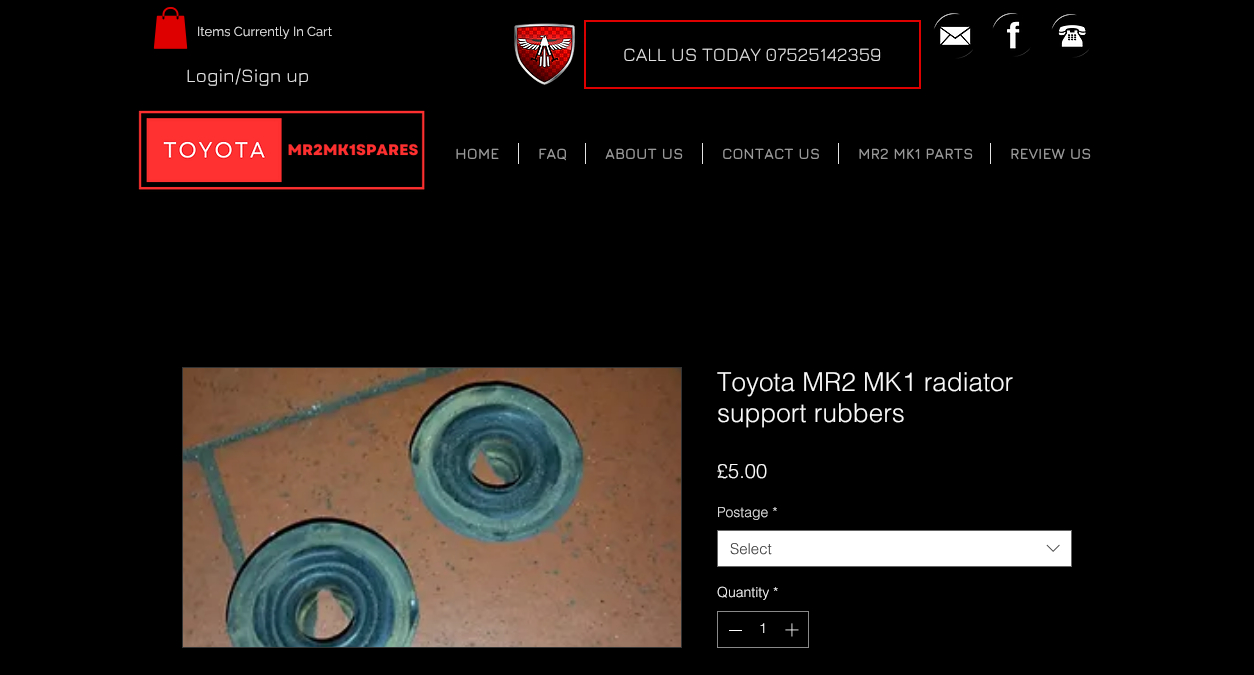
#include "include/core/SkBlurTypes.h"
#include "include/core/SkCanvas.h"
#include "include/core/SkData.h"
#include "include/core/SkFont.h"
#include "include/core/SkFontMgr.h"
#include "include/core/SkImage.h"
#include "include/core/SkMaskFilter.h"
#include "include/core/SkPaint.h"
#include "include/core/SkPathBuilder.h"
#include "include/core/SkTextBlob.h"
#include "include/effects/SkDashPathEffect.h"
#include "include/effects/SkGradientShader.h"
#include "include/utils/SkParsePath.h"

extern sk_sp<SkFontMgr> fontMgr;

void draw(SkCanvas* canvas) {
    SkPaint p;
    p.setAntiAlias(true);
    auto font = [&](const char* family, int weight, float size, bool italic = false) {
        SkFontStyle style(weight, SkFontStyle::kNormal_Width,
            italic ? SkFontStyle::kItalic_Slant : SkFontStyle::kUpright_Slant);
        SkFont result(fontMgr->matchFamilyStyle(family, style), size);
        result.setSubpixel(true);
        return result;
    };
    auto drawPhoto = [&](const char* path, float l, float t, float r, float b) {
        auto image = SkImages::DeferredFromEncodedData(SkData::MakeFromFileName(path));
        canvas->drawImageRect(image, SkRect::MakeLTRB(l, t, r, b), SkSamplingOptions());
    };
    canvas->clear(0xFF000000);
    drawPhoto("media/1.png", 153, 7, 188, 49);
    auto font1 = font("Raleway", 400, 13);
    p.setColor(0xFFE4E4E4);
    canvas->drawString("Items Currently In Cart", 197, 36, font1, p);
    p.setStyle(SkPaint::kStroke_Style);
    p.setStrokeWidth(2);
    p.setColor(0xFFDE0000);
    canvas->drawRect(SkRect::MakeLTRB(585, 21, 920, 88), p);
    drawPhoto("media/2.png", 514, 23, 586, 85);
    drawPhoto("media/3.png", 933, 13, 973, 59);
    drawPhoto("media/4.png", 992, 13, 1031, 57);
    drawPhoto("media/5.png", 1051, 14, 1090, 58);
    auto font2 = font("Jura", 400, 19);
    p.setStyle(SkPaint::kFill_Style);
    p.setColor(0xFFE4E4E4);
    canvas->drawString("CALL US TODAY 07525142359", 623, 61, font2, p);
    canvas->drawString("Login/Sign up", 186, 82, font2, p);
    drawPhoto("media/6.png", 138, 110, 425, 192);
    auto font3 = font("Jura", 700, 15);
    p.setColor(0xFF999999);
    canvas->drawString("HOME", 455, 159, font3, p);
    p.setColor(0xFFE4E4E4);
    canvas->drawRect(SkRect::MakeLTRB(518, 143, 519, 164), p);
    p.setColor(0xFF999999);
    canvas->drawString("FAQ", 538, 159, font3, p);
    p.setColor(0xFFE4E4E4);
    canvas->drawRect(SkRect::MakeLTRB(585, 143, 586, 164), p);
    p.setColor(0xFF999999);
    canvas->drawString("ABOUT US", 605, 159, font3, p);
    p.setColor(0xFFE4E4E4);
    canvas->drawRect(SkRect::MakeLTRB(702, 143, 703, 164), p);
    p.setColor(0xFF999999);
    canvas->drawString("CONTACT US", 722, 159, font3, p);
    p.setColor(0xFFE4E4E4);
    canvas->drawRect(SkRect::MakeLTRB(838, 143, 839, 164), p);
    p.setColor(0xFF999999);
    canvas->drawString("MR2 MK1 PARTS", 858, 159, font3, p);
    p.setColor(0xFFE4E4E4);
    canvas->drawRect(SkRect::MakeLTRB(990, 143, 991, 164), p);
    p.setColor(0xFF999999);
    canvas->drawString("REVIEW US", 1010, 159, font3, p);
    p.setStyle(SkPaint::kStroke_Style);
    p.setStrokeWidth(1);
    p.setColor(0xFF333333);
    canvas->drawRect(SkRect::MakeLTRB(182.5f, 367.5f, 681.5f, 647.5f), p);
    drawPhoto("media/7.png", 183, 368, 681, 647);
    auto font4 = font("helvetica", 300, 26);
    p.setStyle(SkPaint::kFill_Style);
    p.setColor(0xFFFAFAFA);
    canvas->drawString("Toyota MR2 MK1 radiator", 717, 391, font4, p);
    canvas->drawString("support rubbers", 717, 422, font4, p);
    auto font5 = font("helvetica", 300, 20);
    canvas->drawString("£5.00", 717, 478, font5, p);
    auto font6 = font("helvetica", 300, 14);
    p.setColor(0xFFE4E4E4);
    canvas->drawString("Postage *", 717, 517, font6, p);
    p.setColor(0xFFFFFFFF);
    canvas->drawRect(SkRect::MakeLTRB(717.5f, 530.5f, 1071.5f, 566.5f), p);
    p.setStyle(SkPaint::kStroke_Style);
    p.setColor(0xFF666666);
    canvas->drawRect(SkRect::MakeLTRB(717.5f, 530.5f, 1071.5f, 566.5f), p);
    auto font7 = font("helvetica", 300, 15);
    p.setStyle(SkPaint::kFill_Style);
    p.setColor(0xFF444444);
    canvas->drawString("Select", 730, 554, font7, p);
    drawPhoto("media/8.png", 1046, 544, 1060, 552);
    p.setColor(0xFFFAFAFA);
    canvas->drawString("Quantity *", 717, 597, font6, p);
    p.setStyle(SkPaint::kStroke_Style);
    p.setColor(0xFF898989);
    canvas->drawRect(SkRect::MakeLTRB(717.5f, 611.5f, 808.5f, 647.5f), p);
    p.setStyle(SkPaint::kFill_Style);
    p.setColor(0xFFFFFFFF);
    canvas->drawRect(SkRect::MakeLTRB(729, 630, 742, 631), p);
    p.setColor(0xFFFAFAFA);
    canvas->drawString("1", 759, 633, font6, p);
    drawPhoto("media/9.png", 785, 623, 799, 637);
}
